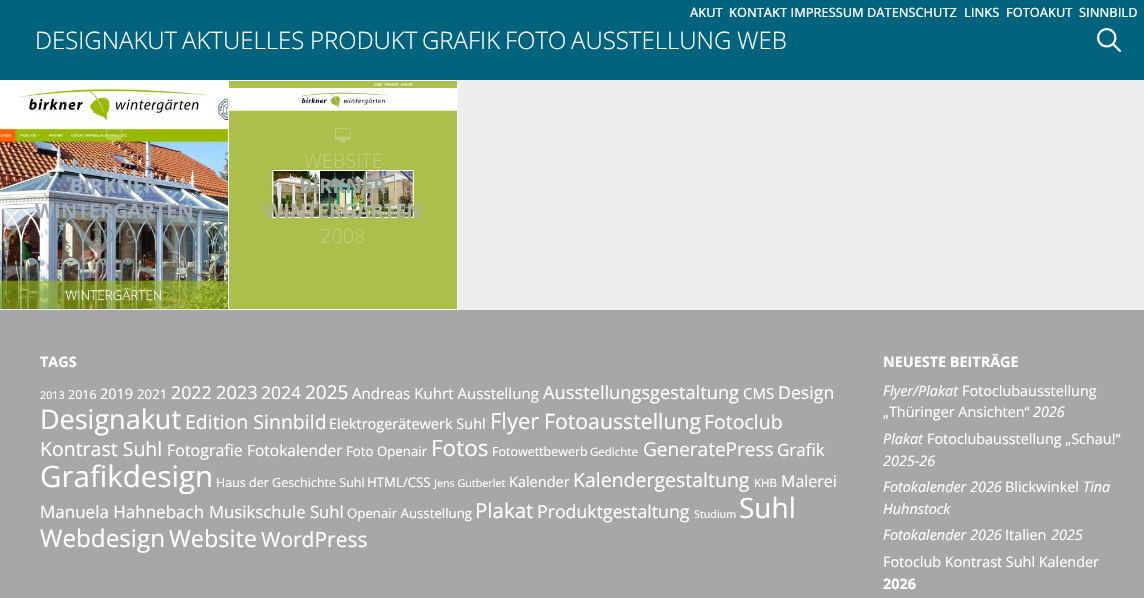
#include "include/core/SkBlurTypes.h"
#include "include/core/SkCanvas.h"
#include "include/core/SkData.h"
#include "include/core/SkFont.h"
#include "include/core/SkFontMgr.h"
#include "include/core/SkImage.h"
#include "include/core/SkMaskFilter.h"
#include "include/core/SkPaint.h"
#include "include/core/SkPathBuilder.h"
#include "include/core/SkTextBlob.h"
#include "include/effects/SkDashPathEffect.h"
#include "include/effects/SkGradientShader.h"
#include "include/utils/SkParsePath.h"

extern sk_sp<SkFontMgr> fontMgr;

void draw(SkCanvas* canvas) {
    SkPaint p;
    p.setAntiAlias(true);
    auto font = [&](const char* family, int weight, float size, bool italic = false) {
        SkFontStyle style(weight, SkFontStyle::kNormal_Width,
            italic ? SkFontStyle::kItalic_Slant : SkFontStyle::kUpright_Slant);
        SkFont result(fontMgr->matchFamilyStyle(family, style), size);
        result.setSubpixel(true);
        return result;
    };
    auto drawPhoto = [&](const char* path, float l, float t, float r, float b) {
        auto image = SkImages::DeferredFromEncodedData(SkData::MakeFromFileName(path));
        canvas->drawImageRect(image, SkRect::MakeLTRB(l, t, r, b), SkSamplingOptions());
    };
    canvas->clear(0xFFEEEEEE);
    p.setColor(0xFF00637E);
    canvas->drawRect(SkRect::MakeLTRB(0, 0, 1144, 80), p);
    auto font1 = font("Open Sans", 500, 12.75f);
    p.setColor(0xFFFFFFFF);
    {
        const struct { const char* s; float x, y; } items[] = {
            {"AKUT", 690, 17},
            {"KONTAKT IMPRESSUM DATENSCHUTZ", 729, 17},
            {"LINKS", 964, 17},
            {"FOTOAKUT", 1006, 17},
            {"SINNBILD", 1079, 17},
        };
        for (auto [s, x, y] : items) {
            canvas->drawString(s, x, y, font1, p);
        }
    }
    auto font2 = font("Open Sans", 300, 24);
    canvas->drawString("DESIGNAKUT", 35, 49, font2, p);
    p.setColor(0xFF00637E);
    canvas->drawRect(SkRect::MakeLTRB(177, 32, 178, 33), p);
    p.setColor(0xFFFFFFFF);
    {
        const struct { const char* s; float x, y; } items[] = {
            {"AKTUELLES", 182, 49},
            {"PRODUKT", 310, 49},
            {"GRAFIK", 422, 49},
            {"FOTO", 505, 49},
            {"AUSSTELLUNG", 571, 49},
            {"WEB", 737, 49},
        };
        for (auto [s, x, y] : items) {
            canvas->drawString(s, x, y, font2, p);
        }
    }
    drawPhoto("media/1.png", 1097, 28, 1121, 52);
    p.setColor(0xFFFCFCFC);
    canvas->drawRect(SkRect::MakeLTRB(0, 80, 458, 81), p);
    canvas->drawRect(SkRect::MakeLTRB(228, 80, 229, 309), p);
    drawPhoto("media/2.png", 0, 81, 228, 309);
    drawPhoto("media/3.png", 106, 128, 122, 142);
    auto font3 = font("Open Sans", 300, 20);
    p.setColor(0xFFBA9787);
    canvas->drawString("WEBSITE", 75, 168, font3, p);
    auto font4 = font("Open Sans", 700, 20);
    p.setColor(0xFFA0AEBF);
    canvas->drawString("BIRKNER", 70, 193, font4, p);
    p.setColor(0xFFA1AAB2);
    canvas->drawString("WINTERGÄRTEN", 35, 218, font4, p);
    p.setColor(0xFF8B8C8A);
    canvas->drawString("2019", 91, 243, font3, p);
    p.setColor(0xFFFCFCFC);
    canvas->drawRect(SkRect::MakeLTRB(457, 80, 458, 310), p);
    canvas->drawRect(SkRect::MakeLTRB(229, 309, 458, 310), p);
    drawPhoto("media/4.png", 229, 81, 457, 309);
    drawPhoto("media/5.png", 335, 128, 351, 142);
    p.setColor(0xFFC0CF79);
    canvas->drawString("WEBSITE", 304, 168, font3, p);
    p.setColor(0xFF9CA498);
    canvas->drawString("BIRKNER", 299, 193, font4, p);
    p.setColor(0xFFAEB296);
    canvas->drawString("WINTERGÄRTEN", 264, 218, font4, p);
    p.setColor(0xFFC0CF79);
    canvas->drawString("2008", 320, 243, font3, p);
    p.setColor(0xFFA7A7A7);
    canvas->drawRect(SkRect::MakeLTRB(0, 310, 1144, 598), p);
    auto font5 = font("Open Sans", 700, 14.4f);
    p.setColor(0xFFFFFFFF);
    canvas->drawString("TAGS", 40, 367, font5, p);
    auto font6 = font("Open Sans", 400, 10.75f);
    canvas->drawString("2013", 40, 399, font6, p);
    auto font7 = font("Open Sans", 400, 12.5f);
    canvas->drawString("2016", 68, 399, font7, p);
    auto font8 = font("Open Sans", 400, 14.5f);
    canvas->drawString("2019", 100, 399, font8, p);
    auto font9 = font("Open Sans", 400, 13.25f);
    canvas->drawString("2021", 137, 399, font9, p);
    auto font10 = font("Open Sans", 400, 17.75f);
    canvas->drawString("2022", 171, 399, font10, p);
    auto font11 = font("Open Sans", 400, 18.25f);
    canvas->drawString("2023", 216, 399, font11, p);
    auto font12 = font("Open Sans", 400, 17.5f);
    canvas->drawString("2024", 261, 399, font12, p);
    auto font13 = font("Open Sans", 400, 19);
    canvas->drawString("2025", 305, 399, font13, p);
    auto font14 = font("Open Sans", 400, 15.1f);
    canvas->drawString("Andreas Kuhrt Ausstellung", 352, 399, font14, p);
    canvas->drawString("Ausstellungsgestaltung", 543, 399, font11, p);
    canvas->drawString("CMS", 743, 399, font14, p);
    canvas->drawString("Design", 778, 399, font10, p);
    auto font15 = font("Open Sans", 400, 27);
    canvas->drawString("Designakut", 40, 429, font15, p);
    auto font16 = font("Open Sans", 400, 19.5f);
    canvas->drawString("Edition Sinnbild", 185, 429, font16, p);
    canvas->drawString("Elektrogerätewerk Suhl", 329, 429, font8, p);
    auto font17 = font("Open Sans", 400, 22);
    canvas->drawString("Flyer", 490, 429, font17, p);
    auto font18 = font("Open Sans", 400, 21.25f);
    canvas->drawString("Fotoausstellung", 544, 429, font18, p);
    canvas->drawString("Fotoclub", 704, 429, font16, p);
    canvas->drawString("Kontrast Suhl", 40, 456, font16, p);
    auto font19 = font("Open Sans", 400, 16);
    canvas->drawString("Fotografie", 167, 456, font19, p);
    auto font20 = font("Open Sans", 400, 15.5f);
    canvas->drawString("Fotokalender", 247, 456, font20, p);
    canvas->drawString("Foto Openair", 346, 456, font9, p);
    auto font21 = font("Open Sans", 400, 22.5f);
    canvas->drawString("Fotos", 431, 456, font21, p);
    canvas->drawString("Fotowettbewerb", 492, 456, font7, p);
    auto font22 = font("Open Sans", 400, 11.5f);
    canvas->drawString("Gedichte", 590, 456, font22, p);
    canvas->drawString("GeneratePress", 643, 456, font13, p);
    auto font23 = font("Open Sans", 400, 17);
    canvas->drawString("Grafik", 777, 456, font23, p);
    auto font24 = font("Open Sans", 400, 29.5f);
    canvas->drawString("Grafikdesign", 40, 487, font24, p);
    canvas->drawString("Haus der Geschichte Suhl", 216, 487, font7, p);
    canvas->drawString("HTML/CSS", 367, 487, font9, p);
    canvas->drawString("Jens Gutberlet", 434, 487, font6, p);
    canvas->drawString("Kalender", 509, 487, font8, p);
    canvas->drawString("Kalendergestaltung", 573, 487, font16, p);
    canvas->drawString("KHB", 754, 487, font22, p);
    canvas->drawString("Malerei", 781, 487, font19, p);
    canvas->drawString("Manuela Hahnebach", 40, 518, font23, p);
    auto font25 = font("Open Sans", 400, 16.75f);
    canvas->drawString("Musikschule Suhl", 209, 518, font25, p);
    canvas->drawString("Openair Ausstellung", 347, 518, font9, p);
    auto font26 = font("Open Sans", 400, 20.5f);
    canvas->drawString("Plakat", 475, 518, font26, p);
    canvas->drawString("Produktgestaltung", 537, 518, font10, p);
    canvas->drawString("Studium", 694, 518, font6, p);
    auto font27 = font("Open Sans", 400, 28);
    canvas->drawString("Suhl", 739, 518, font27, p);
    auto font28 = font("Open Sans", 400, 24.25f);
    canvas->drawString("Webdesign", 40, 547, font28, p);
    auto font29 = font("Open Sans", 400, 23.5f);
    canvas->drawString("Website", 169, 547, font29, p);
    auto font30 = font("Open Sans", 400, 21);
    canvas->drawString("WordPress", 261, 547, font30, p);
    canvas->drawString("NEUESTE BEITRÄGE", 883, 367, font5, p);
    auto font31 = font("Open Sans", 400, 14.4f, true);
    canvas->drawString("Flyer/Plakat", 883, 396, font31, p);
    auto font32 = font("Open Sans", 400, 14.4f);
    canvas->drawString("Fotoclubausstellung", 962, 396, font32, p);
    canvas->drawString("„Thüringer Ansichten“", 883, 417, font32, p);
    canvas->drawString("2026", 1033, 417, font31, p);
    canvas->drawString("Plakat", 883, 444, font31, p);
    canvas->drawString("Fotoclubausstellung „Schau!“", 927, 444, font32, p);
    canvas->drawString("2025-26", 883, 466, font31, p);
    canvas->drawString("Fotokalender 2026", 883, 492, font31, p);
    canvas->drawString("Blickwinkel", 1005, 492, font32, p);
    {
        const struct { const char* s; float x, y; } items[] = {
            {"Tina", 1083, 492},
            {"Huhnstock", 883, 514},
            {"Fotokalender 2026", 883, 540},
        };
        for (auto [s, x, y] : items) {
            canvas->drawString(s, x, y, font31, p);
        }
    }
    canvas->drawString("Italien", 1005, 540, font32, p);
    canvas->drawString("2025", 1051, 540, font31, p);
    canvas->drawString("Fotoclub Kontrast Suhl Kalender", 883, 567, font32, p);
    canvas->drawString("2026", 883, 589, font5, p);
}
